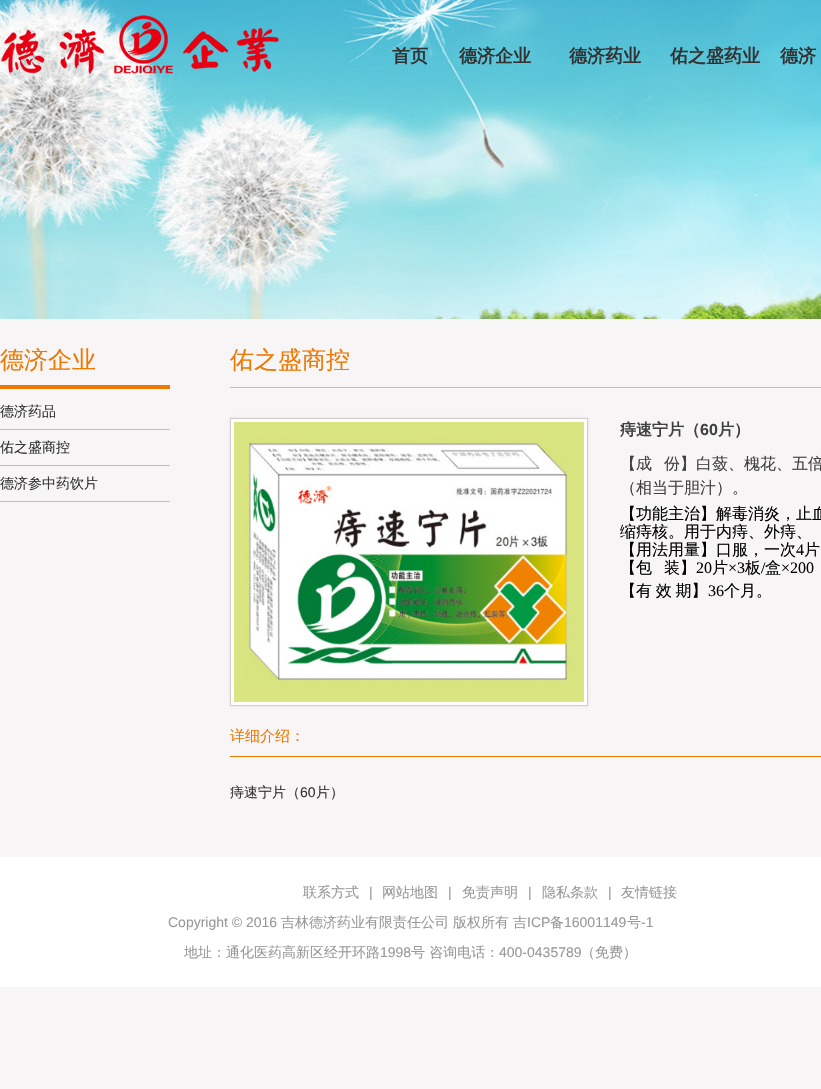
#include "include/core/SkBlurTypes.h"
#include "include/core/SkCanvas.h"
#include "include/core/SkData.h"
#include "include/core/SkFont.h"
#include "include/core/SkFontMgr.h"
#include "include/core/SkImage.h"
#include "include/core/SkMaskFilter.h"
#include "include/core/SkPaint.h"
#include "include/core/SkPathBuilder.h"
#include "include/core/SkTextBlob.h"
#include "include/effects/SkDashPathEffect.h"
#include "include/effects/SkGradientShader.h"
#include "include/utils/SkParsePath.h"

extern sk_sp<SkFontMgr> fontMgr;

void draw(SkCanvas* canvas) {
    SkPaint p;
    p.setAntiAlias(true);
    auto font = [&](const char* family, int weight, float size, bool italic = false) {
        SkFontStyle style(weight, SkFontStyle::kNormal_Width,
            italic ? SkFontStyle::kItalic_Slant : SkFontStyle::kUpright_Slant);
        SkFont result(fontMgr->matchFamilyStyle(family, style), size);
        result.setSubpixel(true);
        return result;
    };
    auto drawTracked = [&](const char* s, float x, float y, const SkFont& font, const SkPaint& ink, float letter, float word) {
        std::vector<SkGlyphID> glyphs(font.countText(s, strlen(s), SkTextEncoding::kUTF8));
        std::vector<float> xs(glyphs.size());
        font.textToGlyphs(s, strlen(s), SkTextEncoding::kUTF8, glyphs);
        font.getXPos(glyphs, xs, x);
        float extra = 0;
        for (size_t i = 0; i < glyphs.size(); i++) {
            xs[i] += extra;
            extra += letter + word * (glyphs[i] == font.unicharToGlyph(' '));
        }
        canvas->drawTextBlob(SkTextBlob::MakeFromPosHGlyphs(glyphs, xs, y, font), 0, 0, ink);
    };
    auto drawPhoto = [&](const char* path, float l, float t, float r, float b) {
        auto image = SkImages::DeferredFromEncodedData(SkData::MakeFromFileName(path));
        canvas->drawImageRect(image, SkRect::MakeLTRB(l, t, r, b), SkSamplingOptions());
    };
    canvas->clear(0xFFF7F5F6);
    drawPhoto("media/1.png", 0, 0, 821, 320);
    drawPhoto("media/2.png", 1, 15, 279, 74);
    auto font1 = font("WenQuanYi Zen Hei", 700, 18);
    p.setColor(0xFF333333);
    {
        const struct { const char* s; float x, y; } items[] = {
            {"首页", 392, 62},
            {"德济企业", 459, 62},
            {"德济药业", 569, 62},
            {"佑之盛药业", 670, 62},
            {"德济", 780, 62},
        };
        for (auto [s, x, y] : items) {
            canvas->drawString(s, x, y, font1, p);
        }
    }
    p.setColor(0xFFEE7800);
    canvas->drawRect(SkRect::MakeLTRB(0, 385, 170, 389), p);
    auto font2 = font("WenQuanYi Zen Hei", 500, 24);
    canvas->drawString("德济企业", 0, 368, font2, p);
    p.setColor(0xFFC3BBB5);
    canvas->drawRect(SkRect::MakeLTRB(0, 429, 170, 430), p);
    auto font3 = font("WenQuanYi Zen Hei", 500, 14);
    p.setColor(0xFF333333);
    canvas->drawString("德济药品", 0, 416, font3, p);
    p.setColor(0xFFC3BBB5);
    canvas->drawRect(SkRect::MakeLTRB(0, 465, 170, 466), p);
    p.setColor(0xFF333333);
    canvas->drawString("佑之盛商控", 0, 452, font3, p);
    p.setColor(0xFFC3BBB5);
    canvas->drawRect(SkRect::MakeLTRB(0, 501, 170, 502), p);
    p.setColor(0xFF333333);
    canvas->drawString("德济参中药饮片", 0, 488, font3, p);
    p.setColor(0xFFC3BBB5);
    canvas->drawRect(SkRect::MakeLTRB(230, 387, 821, 388), p);
    p.setColor(0xFFEE7800);
    canvas->drawString("佑之盛商控", 230, 368, font2, p);
    p.setColor(0xFFDEDEDE);
    p.setMaskFilter(SkMaskFilter::MakeBlur(kNormal_SkBlurStyle, 1));
    canvas->drawRect(SkRect::MakeLTRB(230, 418, 588, 706), p);
    p.setMaskFilter(nullptr);
    p.setColor(0xFFFFFFFF);
    canvas->drawRect(SkRect::MakeLTRB(230.5f, 418.5f, 587.5f, 705.5f), p);
    p.setStyle(SkPaint::kStroke_Style);
    p.setStrokeWidth(1);
    p.setColor(0xFFCFCDCB);
    canvas->drawRect(SkRect::MakeLTRB(230.5f, 418.5f, 587.5f, 705.5f), p);
    drawPhoto("media/3.png", 234, 422, 584, 702);
    auto font4 = font("WenQuanYi Zen Hei", 700, 16);
    p.setStyle(SkPaint::kFill_Style);
    p.setColor(0xFF404040);
    canvas->drawString("痔速宁片（", 620, 435, font4, p);
    auto font5 = font("Liberation Sans", 700, 16);
    canvas->drawString("60", 700, 435, font5, p);
    canvas->drawString("片）", 718, 435, font4, p);
    auto font6 = font("WenQuanYi Zen Hei", 500, 16);
    {
        const struct { const char* s; float x, y; } items[] = {
            {"【成", 620, 469},
            {"份】白蔹、槐花、五倍", 664, 469},
            {"（相当于胆汁）。", 620, 493},
        };
        for (auto [s, x, y] : items) {
            canvas->drawString(s, x, y, font6, p);
        }
    }
    p.setColor(0xFF000000);
    {
        const struct { const char* s; float x, y; } items[] = {
            {"【功能主治】解毒消炎，止血", 620, 519},
            {"缩痔核。用于内痔、外痔、", 620, 537},
            {"【用法用量】口服，一次", 620, 555},
        };
        for (auto [s, x, y] : items) {
            canvas->drawString(s, x, y, font6, p);
        }
    }
    auto font7 = font("Liberation Serif", 400, 16);
    canvas->drawString("4", 796, 555, font7, p);
    {
        const struct { const char* s; float x, y; } items[] = {
            {"片", 804, 555},
            {"【包", 620, 573},
            {"装】", 664, 573},
        };
        for (auto [s, x, y] : items) {
            canvas->drawString(s, x, y, font6, p);
        }
    }
    canvas->drawString("20", 696, 573, font7, p);
    canvas->drawString("片", 712, 573, font6, p);
    canvas->drawString("×3", 728, 573, font7, p);
    canvas->drawString("板", 745, 573, font6, p);
    canvas->drawString("/", 761, 573, font7, p);
    canvas->drawString("盒", 765, 573, font6, p);
    canvas->drawString("×200", 781, 573, font7, p);
    drawTracked("【有 效 期】", 620, 596, font6, p, 0, -1);
    canvas->drawString("36", 708, 596, font7, p);
    canvas->drawString("个月。", 724, 596, font6, p);
    p.setColor(0xFFEE7800);
    canvas->drawRect(SkRect::MakeLTRB(230, 756, 821, 757), p);
    auto font8 = font("WenQuanYi Zen Hei", 500, 15);
    canvas->drawString("详细介绍：", 230, 741, font8, p);
    p.setColor(0xFF333333);
    canvas->drawString("痔速宁片（", 230, 797, font3, p);
    auto font9 = font("Liberation Sans", 400, 14);
    canvas->drawString("60", 300, 797, font9, p);
    canvas->drawString("片）", 316, 797, font3, p);
    p.setColor(0xFFFFFFFF);
    canvas->drawRect(SkRect::MakeLTRB(0, 857, 821, 987), p);
    p.setColor(0xFF989898);
    canvas->drawString("联系方式", 303, 897, font3, p);
    canvas->drawString("|", 369, 897, font9, p);
    canvas->drawString("网站地图", 382, 897, font3, p);
    canvas->drawString("|", 448, 897, font9, p);
    canvas->drawString("免责声明", 462, 897, font3, p);
    canvas->drawString("|", 528, 897, font9, p);
    canvas->drawString("隐私条款", 542, 897, font3, p);
    canvas->drawString("|", 608, 897, font9, p);
    canvas->drawString("友情链接", 621, 897, font3, p);
    canvas->drawString("Copyright © 2016", 168, 927, font9, p);
    {
        const struct { const char* s; float x, y; } items[] = {
            {"吉林德济药业有限责任公司", 281, 927},
            {"版权所有", 453, 927},
            {"吉", 513, 927},
        };
        for (auto [s, x, y] : items) {
            canvas->drawString(s, x, y, font3, p);
        }
    }
    canvas->drawString("ICP", 527, 927, font9, p);
    canvas->drawString("备", 550, 927, font3, p);
    canvas->drawString("16001149", 564, 927, font9, p);
    canvas->drawString("号", 627, 927, font3, p);
    canvas->drawString("-1", 641, 927, font9, p);
    canvas->drawString("地址：通化医药高新区经开环路", 184, 957, font3, p);
    canvas->drawString("1998", 380, 957, font9, p);
    canvas->drawString("号 咨询电话：", 411, 957, font3, p);
    canvas->drawString("400-0435789", 499, 957, font9, p);
    canvas->drawString("（免费）", 581, 957, font3, p);
}
